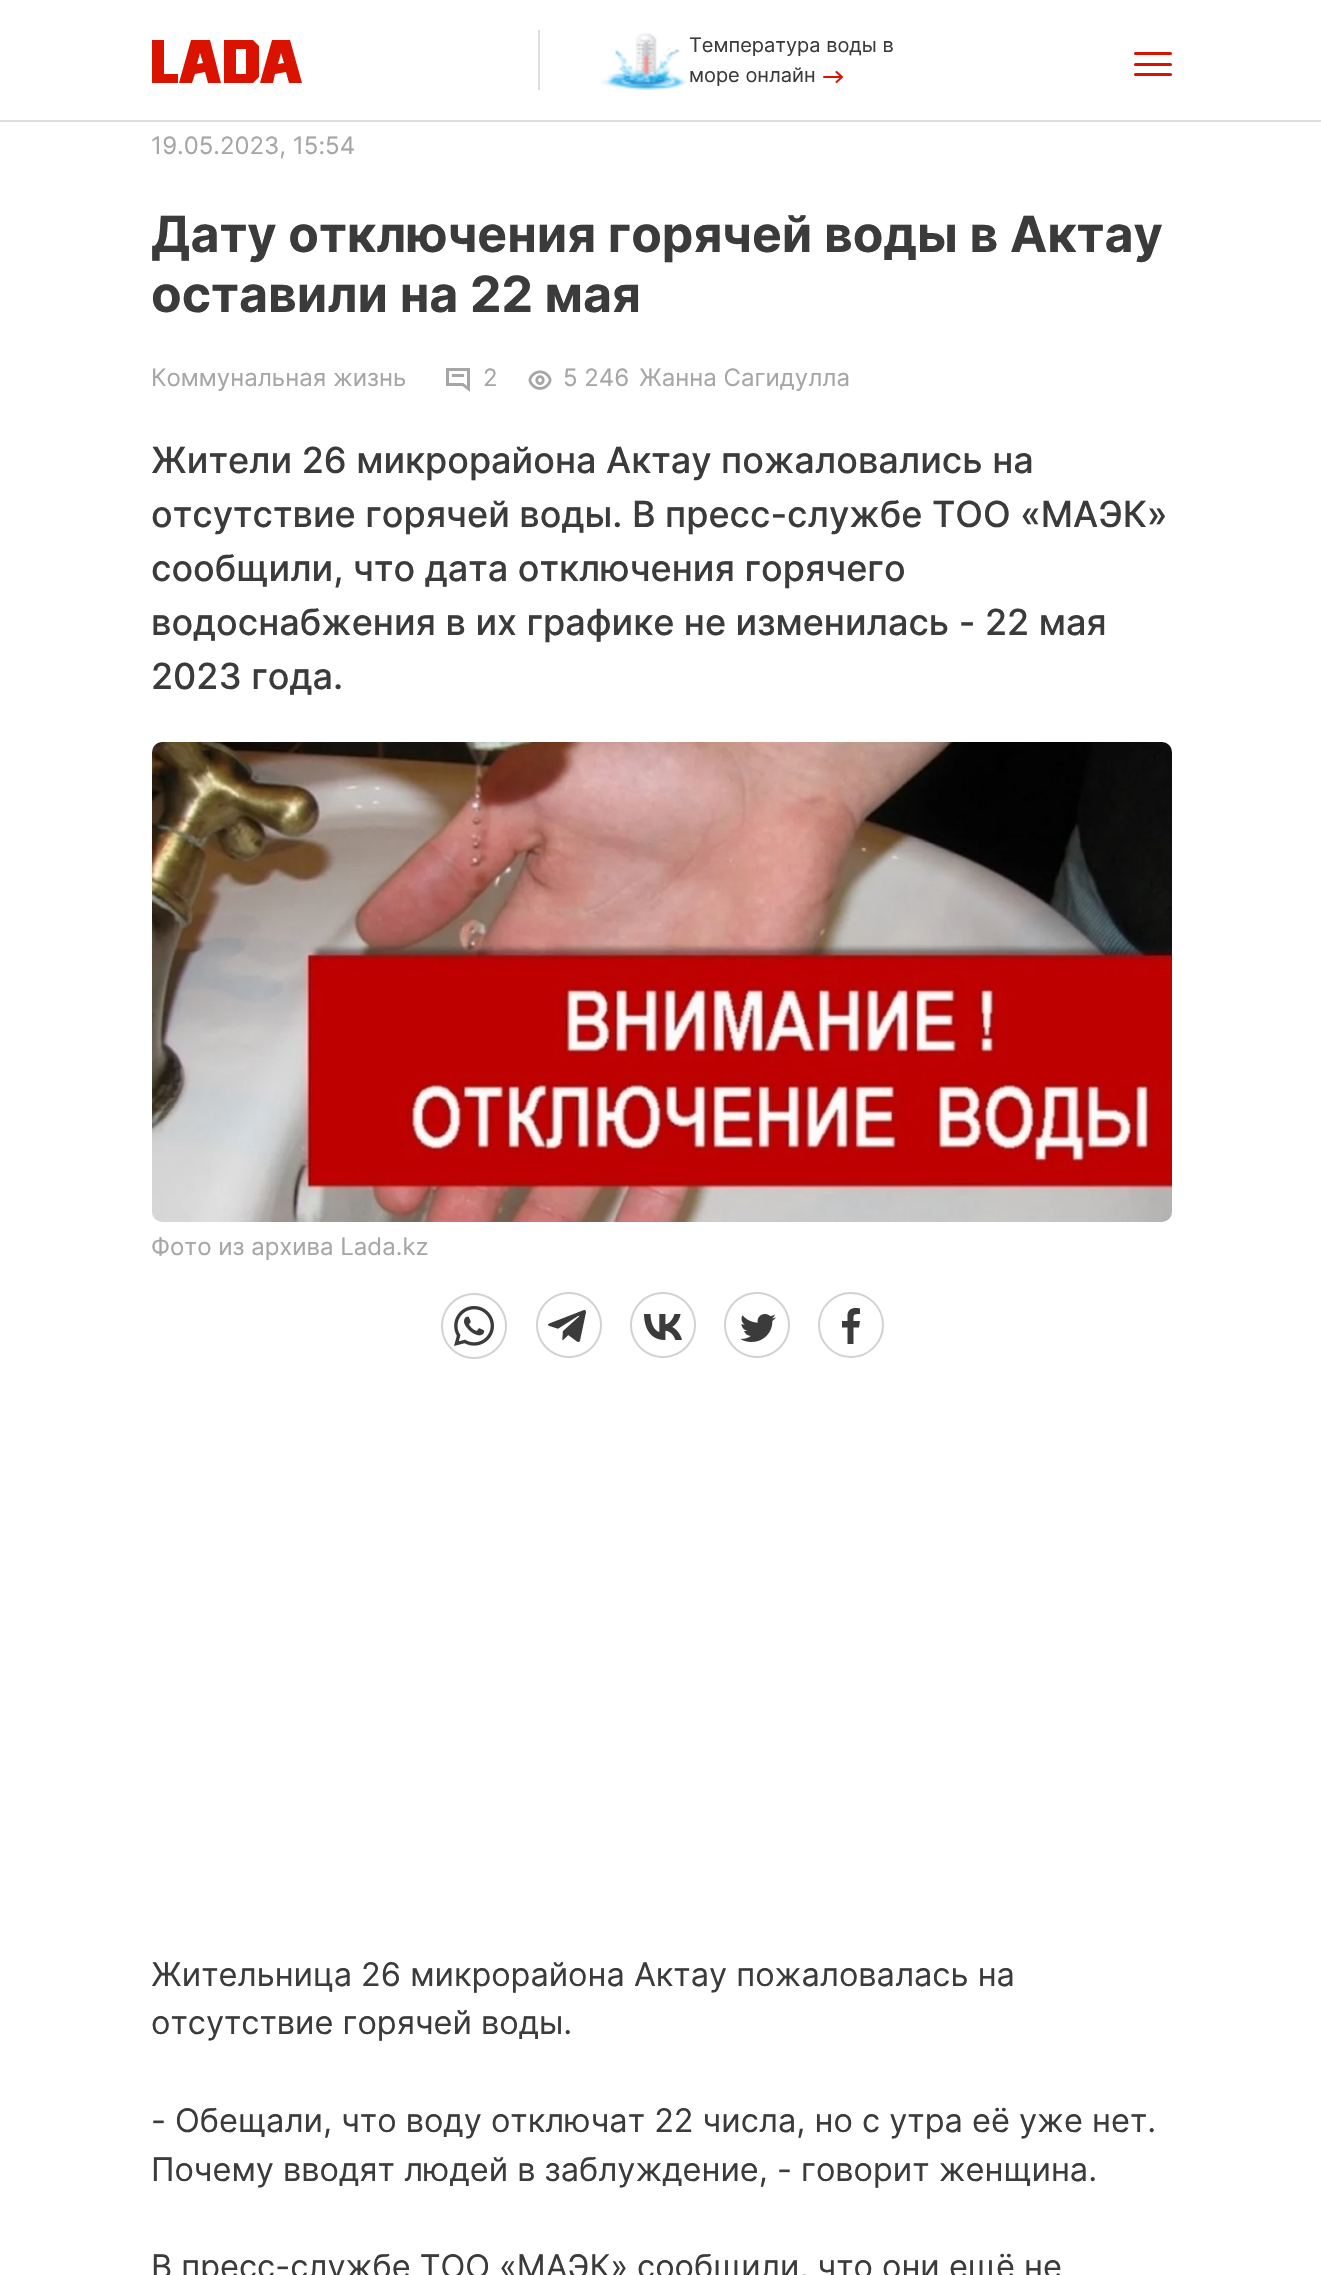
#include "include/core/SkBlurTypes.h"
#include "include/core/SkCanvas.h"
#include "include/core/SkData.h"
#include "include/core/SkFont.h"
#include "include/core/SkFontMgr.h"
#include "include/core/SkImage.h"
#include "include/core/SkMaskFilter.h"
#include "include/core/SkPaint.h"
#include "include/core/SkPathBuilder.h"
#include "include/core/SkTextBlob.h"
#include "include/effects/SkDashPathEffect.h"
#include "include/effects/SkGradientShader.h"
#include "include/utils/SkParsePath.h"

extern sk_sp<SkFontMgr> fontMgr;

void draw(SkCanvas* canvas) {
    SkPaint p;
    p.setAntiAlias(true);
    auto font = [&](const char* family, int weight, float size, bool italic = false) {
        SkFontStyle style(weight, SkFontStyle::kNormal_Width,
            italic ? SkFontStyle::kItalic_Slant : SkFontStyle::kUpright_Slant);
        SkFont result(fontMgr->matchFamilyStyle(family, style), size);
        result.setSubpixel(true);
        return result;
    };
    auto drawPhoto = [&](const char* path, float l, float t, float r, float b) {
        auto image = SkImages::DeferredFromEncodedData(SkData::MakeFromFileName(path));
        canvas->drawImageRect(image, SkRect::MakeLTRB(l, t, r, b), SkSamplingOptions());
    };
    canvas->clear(0xFFFFFFFF);
    p.setColor(0xFFDFDEDE);
    canvas->drawRect(SkRect::MakeLTRB(0, 120, 1321, 122), p);
    p.setColor(0xFFDA1200);
    canvas->drawPath(SkPathBuilder(SkPathFillType::kEvenOdd).moveTo(152, 40).lineTo(164, 40).lineTo(164, 74).lineTo(178, 74).lineTo(178, 83).lineTo(152, 83).close().moveTo(224, 40).lineTo(253, 40).lineTo(259, 46).lineTo(259, 77).lineTo(253, 83).lineTo(224, 83).close().moveTo(236, 74).lineTo(246, 74).lineTo(246, 49).lineTo(236, 49).close().moveTo(210, 40).lineTo(191, 40).lineTo(179, 83).lineTo(192, 83).lineTo(195, 74).lineTo(205, 72).lineTo(208, 83).lineTo(221, 83).close().moveTo(197, 64).lineTo(200, 53).lineTo(203, 63).close().moveTo(272, 40).lineTo(290, 40).lineTo(302, 83).lineTo(289, 83).lineTo(286, 72).lineTo(275, 74).lineTo(273, 83).lineTo(260, 83).close().moveTo(281, 53).lineTo(278, 64).lineTo(284, 63).close().detach(), p);
    p.setColor(0xFFDFDEDE);
    canvas->drawRect(SkRect::MakeLTRB(538, 30, 540, 90), p);
    drawPhoto("media/1.png", 600, 32, 688, 90);
    auto font1 = font("Inter", 400, 20);
    p.setColor(0xFF3B3B3B);
    canvas->drawString("Температура воды в", 689, 52, font1, p);
    canvas->drawString("море онлайн", 689, 82, font1, p);
    p.setStyle(SkPaint::kStroke_Style);
    p.setStrokeWidth(2);
    p.setStrokeCap(SkPaint::kRound_Cap);
    p.setStrokeJoin(SkPaint::kRound_Join);
    p.setColor(0xFFDA1200);
    canvas->drawPath(SkPathBuilder().moveTo(824, 77).lineTo(842, 77).moveTo(842, 77).lineTo(836.5f, 72).moveTo(842, 77).lineTo(836.5f, 82).detach(), p);
    p.setStyle(SkPaint::kFill_Style);
    canvas->drawRoundRect(SkRect::MakeLTRB(1134, 52, 1172, 55), 1.5f, 1.5f, p);
    canvas->drawRoundRect(SkRect::MakeLTRB(1134, 63, 1172, 66), 1.5f, 1.5f, p);
    canvas->drawRoundRect(SkRect::MakeLTRB(1134, 73, 1172, 76), 1.5f, 1.5f, p);
    auto font2 = font("Inter", 400, 24);
    p.setColor(0xFFA6A6A6);
    canvas->drawString("19.05.2023, 15:54", 151, 154, font2, p);
    auto font3 = font("Inter", 700, 50);
    p.setColor(0xFF3B3B3B);
    canvas->drawString("Дату отключения горячей воды в Актау", 151, 252, font3, p);
    canvas->drawString("оставили на 22 мая", 151, 312, font3, p);
    p.setColor(0xFFA6A6A6);
    canvas->drawString("Коммунальная жизнь", 151, 386, font2, p);
    drawPhoto("media/2.png", 446, 368, 470, 392);
    canvas->drawString("2", 483, 386, font2, p);
    drawPhoto("media/3.png", 528, 370, 552, 390);
    canvas->drawString("5 246", 563, 386, font2, p);
    canvas->drawString("Жанна Сагидулла", 639, 386, font2, p);
    auto font4 = font("Inter", 500, 36);
    p.setColor(0xFF3B3B3B);
    {
        const struct { const char* s; float x, y; } items[] = {
            {"Жители 26 микрорайона Актау пожаловались на", 151, 473},
            {"отсутствие горячей воды. В пресс-службе ТОО «МАЭК»", 151, 527},
            {"сообщили, что дата отключения горячего", 151, 581},
            {"водоснабжения в их графике не изменилась - 22 мая", 151, 635},
            {"2023 года.", 151, 689},
        };
        for (auto [s, x, y] : items) {
            canvas->drawString(s, x, y, font4, p);
        }
    }
    drawPhoto("media/4.png", 152, 742, 1172, 1222);
    p.setColor(0xFFA6A6A6);
    canvas->drawString("Фото из архива Lada.kz", 151, 1255, font2, p);
    drawPhoto("media/5.png", 441, 1293, 507, 1359);
    drawPhoto("media/6.png", 536, 1292, 602, 1358);
    drawPhoto("media/7.png", 630, 1292, 696, 1358);
    drawPhoto("media/8.png", 724, 1292, 790, 1358);
    p.setStyle(SkPaint::kStroke_Style);
    p.setStrokeCap(SkPaint::kButt_Cap);
    p.setStrokeJoin(SkPaint::kMiter_Join);
    p.setColor(0xFFD2D2D2);
    canvas->drawCircle(851, 1325, 32, p);
    p.setStyle(SkPaint::kFill_Style);
    p.setColor(0xFF3B3B3B);
    canvas->drawPath(SkPathBuilder().moveTo(853.5f, 1344).lineTo(853.5f, 1327.5f).lineTo(859, 1327.5f).lineTo(860, 1321).lineTo(853.5f, 1321).cubicTo(853.5f, 1314.5f, 853, 1314, 860, 1314).lineTo(860, 1308.5f).cubicTo(854.5f, 1307.5f, 848.5f, 1308, 847.5f, 1314.5f).lineTo(847.5f, 1321).lineTo(842, 1321).lineTo(842, 1327.5f).lineTo(847.5f, 1327.5f).lineTo(847.5f, 1344).close().detach(), p);
    auto font5 = font("Inter", 400, 32.5f);
    {
        const struct { const char* s; float x, y; } items[] = {
            {"Жительница 26 микрорайона Актау пожаловалась на", 151, 1986},
            {"отсутствие горячей воды.", 151, 2034},
            {"- Обещали, что воду отключат 22 числа, но с утра её уже нет.", 151, 2132},
            {"Почему вводят людей в заблуждение, - говорит женщина.", 151, 2181},
            {"В пресс-службе ТОО «МАЭК» сообщили, что они ещё не", 151, 2278},
        };
        for (auto [s, x, y] : items) {
            canvas->drawString(s, x, y, font5, p);
        }
    }
}
